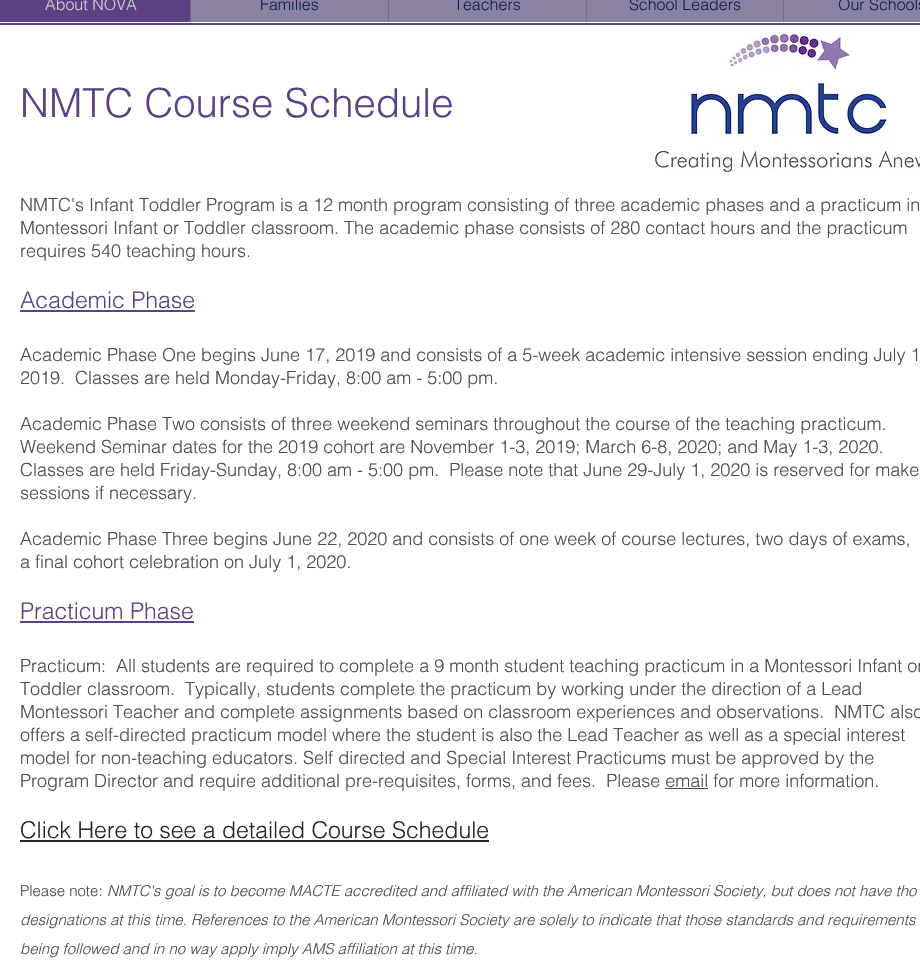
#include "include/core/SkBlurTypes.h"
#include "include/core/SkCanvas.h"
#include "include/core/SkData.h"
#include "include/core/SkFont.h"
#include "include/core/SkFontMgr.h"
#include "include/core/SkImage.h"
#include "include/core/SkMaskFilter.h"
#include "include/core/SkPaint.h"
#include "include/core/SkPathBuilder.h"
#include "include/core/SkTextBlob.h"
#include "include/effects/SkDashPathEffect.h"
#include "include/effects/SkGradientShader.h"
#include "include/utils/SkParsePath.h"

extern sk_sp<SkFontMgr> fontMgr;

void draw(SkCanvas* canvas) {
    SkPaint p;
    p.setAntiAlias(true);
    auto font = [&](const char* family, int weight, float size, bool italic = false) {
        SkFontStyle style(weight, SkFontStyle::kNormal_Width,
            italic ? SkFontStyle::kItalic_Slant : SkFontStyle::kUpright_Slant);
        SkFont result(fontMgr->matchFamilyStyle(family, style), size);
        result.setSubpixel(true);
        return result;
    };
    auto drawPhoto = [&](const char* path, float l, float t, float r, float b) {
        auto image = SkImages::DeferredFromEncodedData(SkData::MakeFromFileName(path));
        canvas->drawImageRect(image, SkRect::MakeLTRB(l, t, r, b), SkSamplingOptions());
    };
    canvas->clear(0xFFFFFFFF);
    p.setColor(0xFF8B81A2);
    canvas->drawRect(SkRect::MakeLTRB(191, 0, 920, 22), p);
    p.setColor(0xFF5B4285);
    canvas->drawRect(SkRect::MakeLTRB(0, 0, 190, 22), p);
    auto font1 = font("helvetica", 300, 16);
    p.setColor(0xFFC8CCD0);
    canvas->drawString("About NOVA", 45, 10, font1, p);
    p.setColor(0xFF6F7479);
    canvas->drawRect(SkRect::MakeLTRB(190, 0, 191, 22), p);
    p.setColor(0xFF0D244D);
    canvas->drawString("Families", 260, 10, font1, p);
    p.setColor(0xFF6F7479);
    canvas->drawRect(SkRect::MakeLTRB(388, 0, 389, 22), p);
    p.setColor(0xFF0D244D);
    canvas->drawString("Teachers", 454, 10, font1, p);
    p.setColor(0xFF6F7479);
    canvas->drawRect(SkRect::MakeLTRB(586, 0, 587, 22), p);
    p.setColor(0xFF0D244D);
    canvas->drawString("School Leaders", 629, 10, font1, p);
    p.setColor(0xFF6F7479);
    canvas->drawRect(SkRect::MakeLTRB(783, 0, 784, 22), p);
    p.setColor(0xFF0D244D);
    canvas->drawString("Our Schools", 838, 10, font1, p);
    p.setColor(0xFF5B4285);
    canvas->drawRect(SkRect::MakeLTRB(0, 23, 920, 25), p);
    auto font2 = font("helvetica", 300, 40);
    canvas->drawString("NMTC Course Schedule", 20, 117, font2, p);
    drawPhoto("media/1.png", 655, 34, 920, 172);
    auto font3 = font("helvetica", 300, 18);
    p.setColor(0xFF4A4E51);
    {
        const struct { const char* s; float x, y; } items[] = {
            {"NMTC's Infant Toddler Program is a 12 month program consisting of three academic phases and a practicum in", 20, 211},
            {"Montessori Infant or Toddler classroom. The academic phase consists of 280 contact hours and the practicum", 20, 234},
            {"requires 540 teaching hours.", 20, 257},
        };
        for (auto [s, x, y] : items) {
            canvas->drawString(s, x, y, font3, p);
        }
    }
    auto font4 = font("helvetica", 300, 23);
    p.setColor(0xFF5B4285);
    canvas->drawString("Academic Phase", 20, 308, font4, p);
    canvas->drawRect(SkRect::MakeLTRB(20, 310, 195, 312), p);
    p.setColor(0xFF4A4E51);
    {
        const struct { const char* s; float x, y; } items[] = {
            {"Academic Phase One begins June 17, 2019 and consists of a 5-week academic intensive session ending July 1", 20, 361},
            {"2019.  Classes are held Monday-Friday, 8:00 am - 5:00 pm.", 20, 384},
            {"Academic Phase Two consists of three weekend seminars throughout the course of the teaching practicum.", 20, 430},
            {"Weekend Seminar dates for the 2019 cohort are November 1-3, 2019; March 6-8, 2020; and May 1-3, 2020.", 20, 453},
            {"Classes are held Friday-Sunday, 8:00 am - 5:00 pm.  Please note that June 29-July 1, 2020 is reserved for make", 20, 476},
            {"sessions if necessary.", 20, 499},
            {"Academic Phase Three begins June 22, 2020 and consists of one week of course lectures, two days of exams,", 20, 545},
            {"a final cohort celebration on July 1, 2020.", 20, 568},
        };
        for (auto [s, x, y] : items) {
            canvas->drawString(s, x, y, font3, p);
        }
    }
    p.setColor(0xFF5B4285);
    canvas->drawString("Practicum Phase", 20, 619, font4, p);
    canvas->drawRect(SkRect::MakeLTRB(20, 621, 194, 623), p);
    p.setColor(0xFF4A4E51);
    {
        const struct { const char* s; float x, y; } items[] = {
            {"Practicum:  All students are required to complete a 9 month student teaching practicum in a Montessori Infant or", 20, 672},
            {"Toddler classroom.  Typically, students complete the practicum by working under the direction of a Lead", 20, 695},
            {"Montessori Teacher and complete assignments based on classroom experiences and observations.  NMTC also", 20, 718},
            {"offers a self-directed practicum model where the student is also the Lead Teacher as well as a special interest", 20, 741},
            {"model for non-teaching educators. Self directed and Special Interest Practicums must be approved by the", 20, 764},
            {"Program Director and require additional pre-requisites, forms, and fees.  Please email for more information.", 20, 787},
        };
        for (auto [s, x, y] : items) {
            canvas->drawString(s, x, y, font3, p);
        }
    }
    canvas->drawRect(SkRect::MakeLTRB(665, 788, 708, 789), p);
    p.setColor(0xFF252728);
    canvas->drawString("Click Here to see a detailed Course Schedule", 20, 838, font4, p);
    canvas->drawRect(SkRect::MakeLTRB(20, 840, 489, 842), p);
    auto font5 = font("helvetica", 300, 15);
    p.setColor(0xFF4A4E51);
    canvas->drawString("Please note:", 20, 896, font5, p);
    auto font6 = font("helvetica", 300, 15, true);
    {
        const struct { const char* s; float x, y; } items[] = {
            {"NMTC's goal is to become MACTE accredited and affiliated with the American Montessori Society, but does not have tho", 107, 896},
            {"designations at this time. References to the American Montessori Society are solely to indicate that those standards and requirements", 20, 925},
            {"being followed and in no way apply imply AMS affiliation at this time.", 20, 954},
        };
        for (auto [s, x, y] : items) {
            canvas->drawString(s, x, y, font6, p);
        }
    }
}
